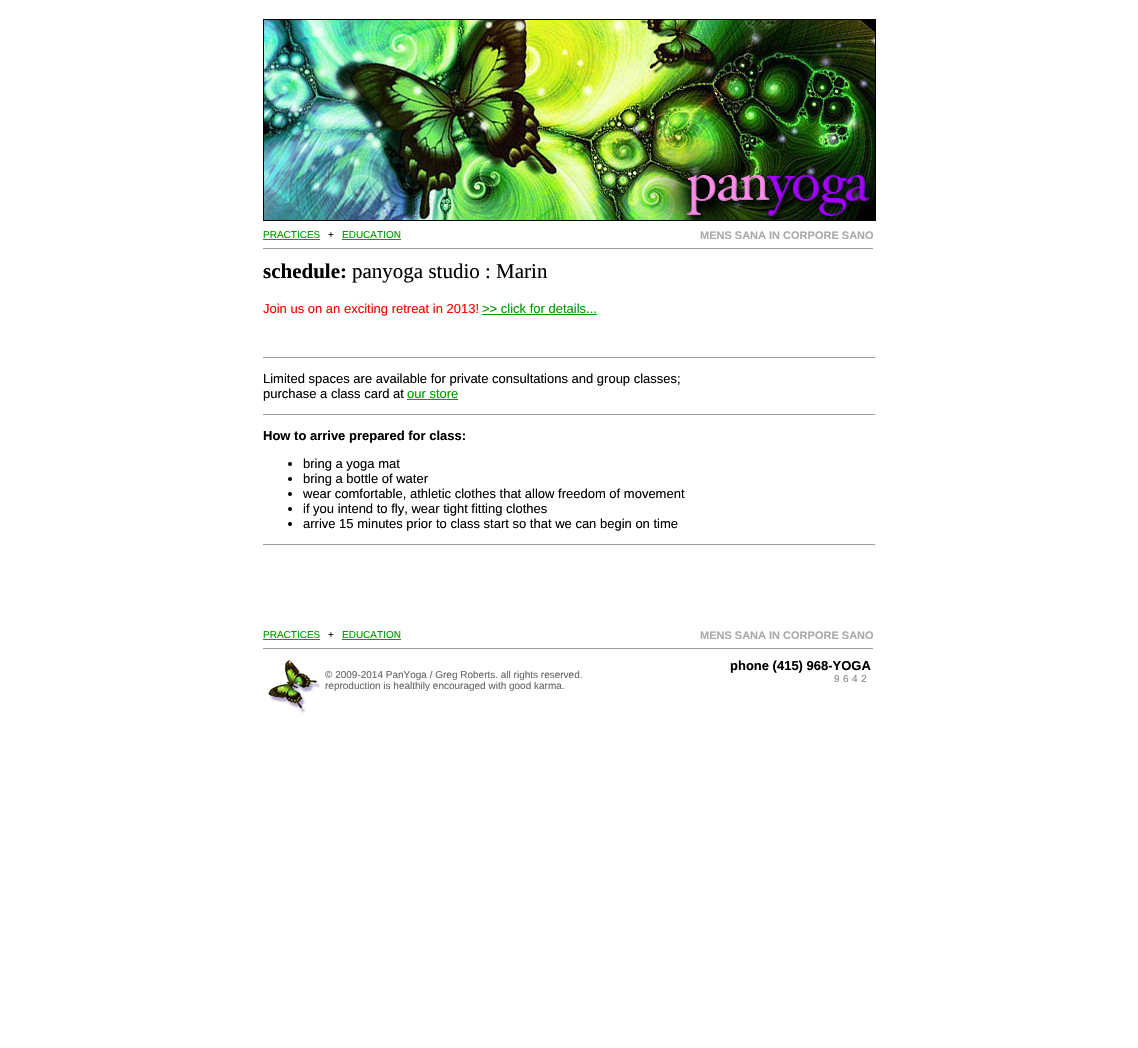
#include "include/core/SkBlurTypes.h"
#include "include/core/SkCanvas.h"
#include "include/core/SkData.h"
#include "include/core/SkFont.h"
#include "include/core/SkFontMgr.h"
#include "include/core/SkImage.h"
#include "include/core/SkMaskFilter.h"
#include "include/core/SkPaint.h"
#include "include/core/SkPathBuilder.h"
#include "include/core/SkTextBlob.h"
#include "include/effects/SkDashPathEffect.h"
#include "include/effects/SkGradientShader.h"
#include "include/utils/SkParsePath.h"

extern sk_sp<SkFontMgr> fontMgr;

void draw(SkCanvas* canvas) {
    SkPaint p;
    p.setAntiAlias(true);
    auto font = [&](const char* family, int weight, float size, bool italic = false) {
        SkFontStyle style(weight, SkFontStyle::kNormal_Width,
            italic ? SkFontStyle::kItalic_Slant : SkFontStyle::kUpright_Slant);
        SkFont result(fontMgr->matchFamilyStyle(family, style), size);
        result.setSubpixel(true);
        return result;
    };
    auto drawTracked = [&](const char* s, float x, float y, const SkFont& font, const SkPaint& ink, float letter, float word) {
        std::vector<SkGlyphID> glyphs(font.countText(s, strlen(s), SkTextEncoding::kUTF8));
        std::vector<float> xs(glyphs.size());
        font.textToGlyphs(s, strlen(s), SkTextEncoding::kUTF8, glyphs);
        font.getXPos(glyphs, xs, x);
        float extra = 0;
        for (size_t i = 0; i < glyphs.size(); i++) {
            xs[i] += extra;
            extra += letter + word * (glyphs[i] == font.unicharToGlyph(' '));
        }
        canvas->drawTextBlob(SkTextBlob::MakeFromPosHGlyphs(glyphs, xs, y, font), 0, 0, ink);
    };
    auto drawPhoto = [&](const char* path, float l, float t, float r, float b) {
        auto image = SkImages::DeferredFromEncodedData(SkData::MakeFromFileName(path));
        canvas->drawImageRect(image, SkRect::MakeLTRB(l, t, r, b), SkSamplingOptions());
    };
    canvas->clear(0xFFFFFFFF);
    p.setStyle(SkPaint::kStroke_Style);
    p.setStrokeWidth(1);
    p.setColor(0xFF000000);
    canvas->drawRect(SkRect::MakeLTRB(263.5f, 19.5f, 875.5f, 220.5f), p);
    drawPhoto("media/1.png", 264, 20, 875, 220);
    auto font1 = font("Liberation Sans", 400, 10);
    p.setStyle(SkPaint::kFill_Style);
    p.setColor(0xFF009900);
    canvas->drawString("PRACTICES", 263, 238, font1, p);
    canvas->drawRect(SkRect::MakeLTRB(263, 239, 320, 240), p);
    p.setColor(0xFF000000);
    canvas->drawString("+", 328, 238, font1, p);
    p.setColor(0xFF009900);
    canvas->drawString("EDUCATION", 342, 238, font1, p);
    canvas->drawRect(SkRect::MakeLTRB(342, 239, 401, 240), p);
    auto font2 = font("Liberation Sans", 700, 11);
    p.setColor(0xFFAAAAAA);
    canvas->drawString("MENS SANA IN CORPORE SANO", 700, 239, font2, p);
    p.setColor(0xFF9F9F9F);
    canvas->drawRect(SkRect::MakeLTRB(263, 248, 874, 249), p);
    p.setColor(0xFFEEEEEE);
    canvas->drawRect(SkRect::MakeLTRB(873, 248, 874, 249), p);
    auto font3 = font("Liberation Serif", 700, 21);
    p.setColor(0xFF000000);
    canvas->drawString("schedule:", 263, 278, font3, p);
    auto font4 = font("Liberation Serif", 400, 21);
    canvas->drawString("panyoga studio : Marin", 352, 278, font4, p);
    auto font5 = font("Liberation Sans", 400, 13);
    p.setColor(0xFFFF0000);
    canvas->drawString("Join us on an exciting retreat in 2013!", 263, 313, font5, p);
    p.setColor(0xFF009900);
    canvas->drawString(">> click for details...", 482, 313, font5, p);
    {
        const struct { float l, t, r, b; SkColor color; } items[] = {
            {482, 314, 597, 315, 0xFF009900},
            {263, 357, 876, 358, 0xFF9F9F9F},
            {875, 357, 876, 358, 0xFFEEEEEE},
        };
        for (auto [l, t, r, b, color] : items) {
            p.setColor(color);
            canvas->drawRect(SkRect::MakeLTRB(l, t, r, b), p);
        }
    }
    p.setColor(0xFF000000);
    canvas->drawString("Limited spaces are available for private consultations and group classes;", 263, 383, font5, p);
    canvas->drawString("purchase a class card at", 263, 398, font5, p);
    p.setColor(0xFF009900);
    canvas->drawString("our store", 407, 398, font5, p);
    {
        const struct { float l, t, r, b; SkColor color; } items[] = {
            {407, 399, 458, 400, 0xFF009900},
            {263, 414, 876, 415, 0xFF9F9F9F},
            {875, 414, 876, 415, 0xFFEEEEEE},
        };
        for (auto [l, t, r, b, color] : items) {
            p.setColor(color);
            canvas->drawRect(SkRect::MakeLTRB(l, t, r, b), p);
        }
    }
    auto font6 = font("Liberation Sans", 700, 13);
    p.setColor(0xFF000000);
    canvas->drawString("How to arrive prepared for class:", 263, 440, font6, p);
    canvas->drawCircle(290, 464, 2, p);
    canvas->drawString("bring a yoga mat", 303, 468, font5, p);
    canvas->drawCircle(290, 479, 2, p);
    canvas->drawString("bring a bottle of water", 303, 483, font5, p);
    canvas->drawCircle(290, 494, 2, p);
    canvas->drawString("wear comfortable, athletic clothes that allow freedom of movement", 303, 498, font5, p);
    canvas->drawCircle(290, 509, 2, p);
    canvas->drawString("if you intend to fly, wear tight fitting clothes", 303, 513, font5, p);
    canvas->drawCircle(290, 524, 2, p);
    canvas->drawString("arrive 15 minutes prior to class start so that we can begin on time", 303, 528, font5, p);
    p.setColor(0xFF9F9F9F);
    canvas->drawRect(SkRect::MakeLTRB(263, 544, 876, 545), p);
    p.setColor(0xFFEEEEEE);
    canvas->drawRect(SkRect::MakeLTRB(875, 544, 876, 545), p);
    p.setColor(0xFF009900);
    canvas->drawString("PRACTICES", 263, 638, font1, p);
    canvas->drawRect(SkRect::MakeLTRB(263, 639, 320, 640), p);
    p.setColor(0xFF000000);
    canvas->drawString("+", 328, 638, font1, p);
    p.setColor(0xFF009900);
    canvas->drawString("EDUCATION", 342, 638, font1, p);
    canvas->drawRect(SkRect::MakeLTRB(342, 639, 401, 640), p);
    p.setColor(0xFFAAAAAA);
    canvas->drawString("MENS SANA IN CORPORE SANO", 700, 639, font2, p);
    p.setColor(0xFF9F9F9F);
    canvas->drawRect(SkRect::MakeLTRB(263, 648, 874, 649), p);
    p.setColor(0xFFEEEEEE);
    canvas->drawRect(SkRect::MakeLTRB(873, 648, 874, 649), p);
    drawPhoto("media/2.png", 268, 659, 321, 713);
    p.setColor(0xFF666666);
    canvas->drawString("© 2009-2014 PanYoga / Greg Roberts. all rights reserved.", 325, 678, font1, p);
    canvas->drawString("reproduction is healthily encouraged with good karma.", 325, 689, font1, p);
    p.setColor(0xFF000000);
    canvas->drawString("phone (415) 968-YOGA", 730, 670, font6, p);
    p.setColor(0xFF888888);
    drawTracked("9642", 834, 682, font1, p, 3.5f, 0);
}
